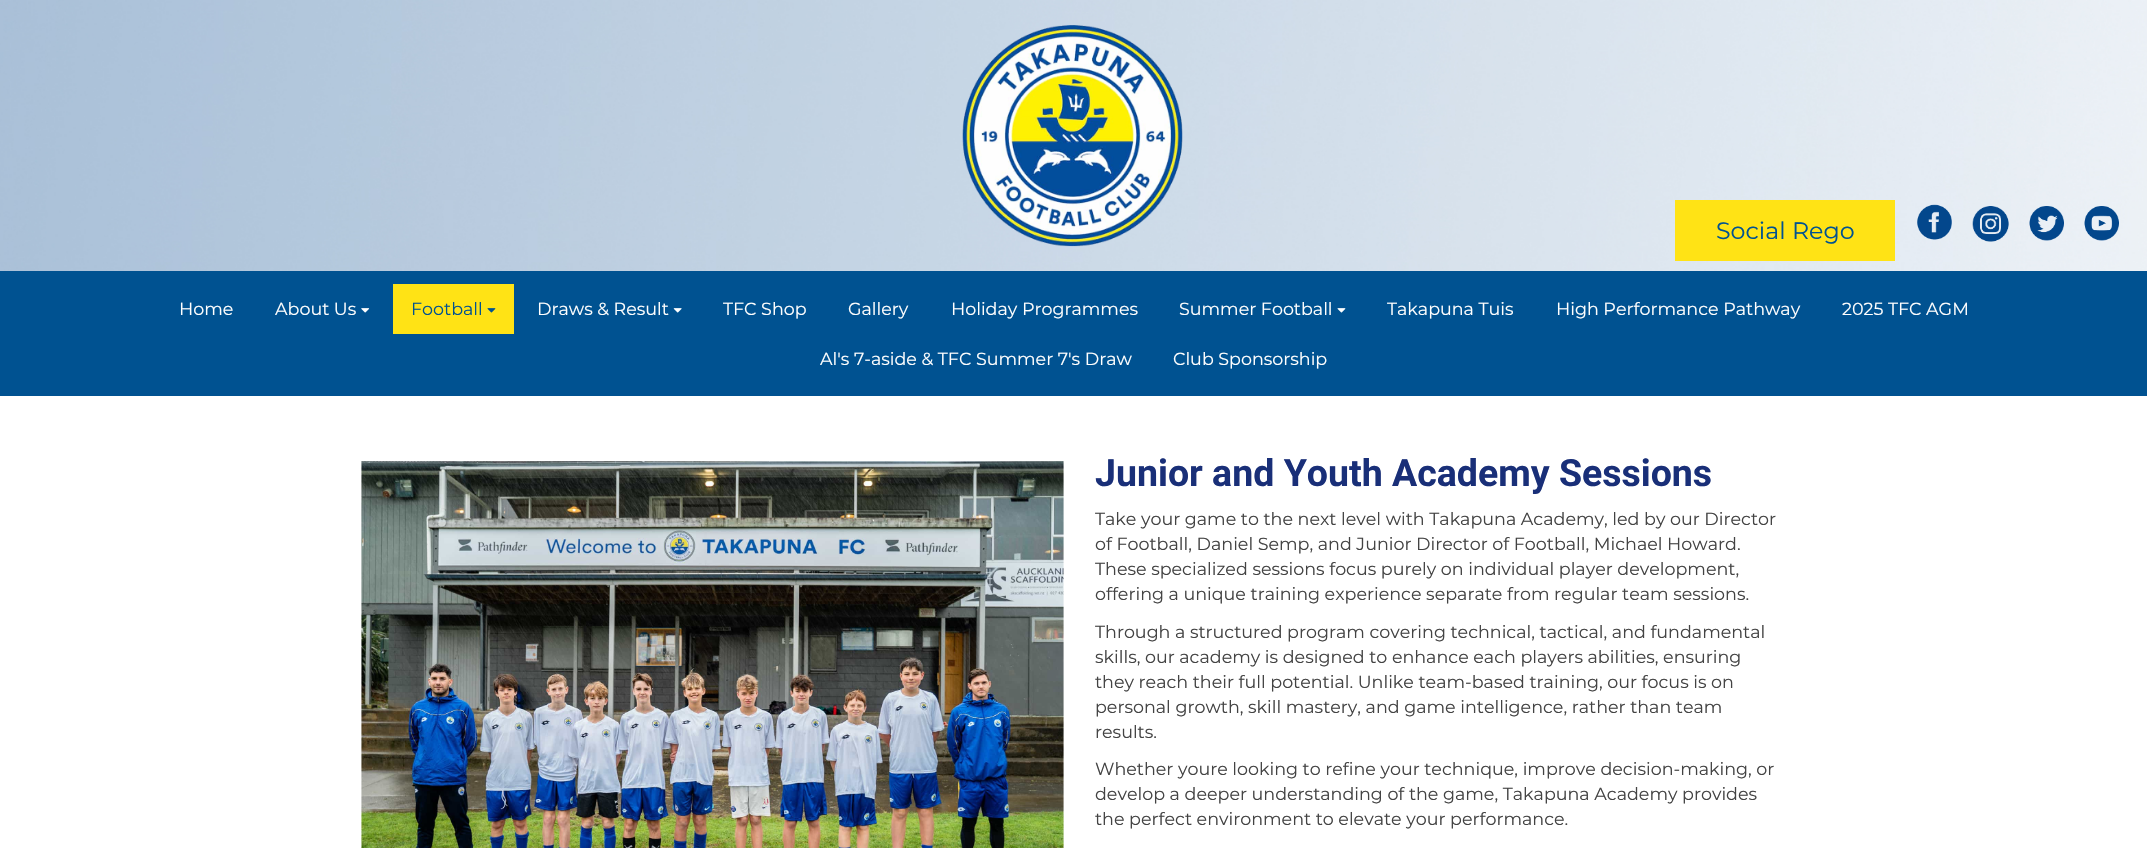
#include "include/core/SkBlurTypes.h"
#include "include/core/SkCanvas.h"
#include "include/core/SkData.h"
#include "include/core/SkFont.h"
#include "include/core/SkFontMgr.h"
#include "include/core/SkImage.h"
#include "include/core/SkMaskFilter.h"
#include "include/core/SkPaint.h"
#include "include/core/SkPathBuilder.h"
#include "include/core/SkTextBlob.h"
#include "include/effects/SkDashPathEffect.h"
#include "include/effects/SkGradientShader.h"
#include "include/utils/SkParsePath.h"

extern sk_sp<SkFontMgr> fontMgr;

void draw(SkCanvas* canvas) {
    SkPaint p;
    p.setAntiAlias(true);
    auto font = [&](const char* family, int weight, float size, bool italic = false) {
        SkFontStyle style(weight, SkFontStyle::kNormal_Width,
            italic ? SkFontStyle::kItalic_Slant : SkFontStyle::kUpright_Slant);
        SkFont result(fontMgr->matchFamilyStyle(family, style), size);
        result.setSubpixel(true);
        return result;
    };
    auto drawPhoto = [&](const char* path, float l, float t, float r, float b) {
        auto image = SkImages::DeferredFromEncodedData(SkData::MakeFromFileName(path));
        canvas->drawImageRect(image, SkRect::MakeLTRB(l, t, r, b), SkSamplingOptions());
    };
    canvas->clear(0xFFFFFFFF);
    drawPhoto("media/1.png", 0, 0, 2147, 271);
    drawPhoto("media/2.png", 962, 25, 1183, 247);
    p.setColor(0xFFFFE315);
    canvas->drawRect(SkRect::MakeLTRB(1675, 200, 1895, 261), p);
    auto font1 = font("Montserrat", 400, 23.75f);
    p.setColor(0xFF005291);
    canvas->drawString("Social Rego", 1716, 239, font1, p);
    drawPhoto("media/3.png", 1917, 204, 1952, 240);
    drawPhoto("media/4.png", 1972, 206, 2009, 242);
    drawPhoto("media/5.png", 2029, 206, 2064, 241);
    drawPhoto("media/6.png", 2084, 206, 2119, 241);
    canvas->drawRect(SkRect::MakeLTRB(0, 271, 2147, 396), p);
    auto font2 = font("Montserrat", 400, 17.5f);
    p.setColor(0xFFFFFFFF);
    canvas->drawString("Home", 179, 315, font2, p);
    canvas->drawString("About Us", 275, 315, font2, p);
    drawPhoto("media/7.png", 361, 308, 370, 313);
    p.setColor(0xFFFFE315);
    canvas->drawRect(SkRect::MakeLTRB(393, 284, 514, 334), p);
    p.setColor(0xFF005291);
    canvas->drawString("Football", 411, 315, font2, p);
    drawPhoto("media/8.png", 487, 308, 496, 313);
    p.setColor(0xFFFFFFFF);
    canvas->drawString("Draws & Result", 537, 315, font2, p);
    drawPhoto("media/9.png", 673, 308, 682, 313);
    {
        const struct { const char* s; float x, y; } items[] = {
            {"TFC Shop", 723, 315},
            {"Gallery", 848, 315},
            {"Holiday Programmes", 951, 315},
            {"Summer Football", 1179, 315},
        };
        for (auto [s, x, y] : items) {
            canvas->drawString(s, x, y, font2, p);
        }
    }
    drawPhoto("media/10.png", 1337, 308, 1346, 313);
    {
        const struct { const char* s; float x, y; } items[] = {
            {"Takapuna Tuis", 1387, 315},
            {"High Performance Pathway", 1556, 315},
            {"2025 TFC AGM", 1842, 315},
            {"Al's 7-aside & TFC Summer 7's Draw", 820, 365},
            {"Club Sponsorship", 1173, 365},
        };
        for (auto [s, x, y] : items) {
            canvas->drawString(s, x, y, font2, p);
        }
    }
    drawPhoto("media/11.png", 361, 461, 1064, 848);
    auto font3 = font("Roboto", 700, 37.5f);
    p.setColor(0xFF192F78);
    canvas->drawString("Junior and Youth Academy Sessions", 1095, 486, font3, p);
    p.setColor(0xFF434343);
    {
        const struct { const char* s; float x, y; } items[] = {
            {"Take your game to the next level with Takapuna Academy, led by our Director", 1095, 525},
            {"of Football, Daniel Semp, and Junior Director of Football, Michael Howard.", 1095, 550},
            {"These specialized sessions focus purely on individual player development,", 1095, 575},
            {"offering a unique training experience separate from regular team sessions.", 1095, 600},
            {"Through a structured program covering technical, tactical, and fundamental", 1095, 638},
            {"skills, our academy is designed to enhance each players abilities, ensuring", 1095, 663},
            {"they reach their full potential. Unlike team-based training, our focus is on", 1095, 688},
            {"personal growth, skill mastery, and game intelligence, rather than team", 1095, 713},
            {"results.", 1095, 738},
            {"Whether youre looking to refine your technique, improve decision-making, or", 1095, 775},
            {"develop a deeper understanding of the game, Takapuna Academy provides", 1095, 800},
            {"the perfect environment to elevate your performance.", 1095, 825},
        };
        for (auto [s, x, y] : items) {
            canvas->drawString(s, x, y, font2, p);
        }
    }
}
